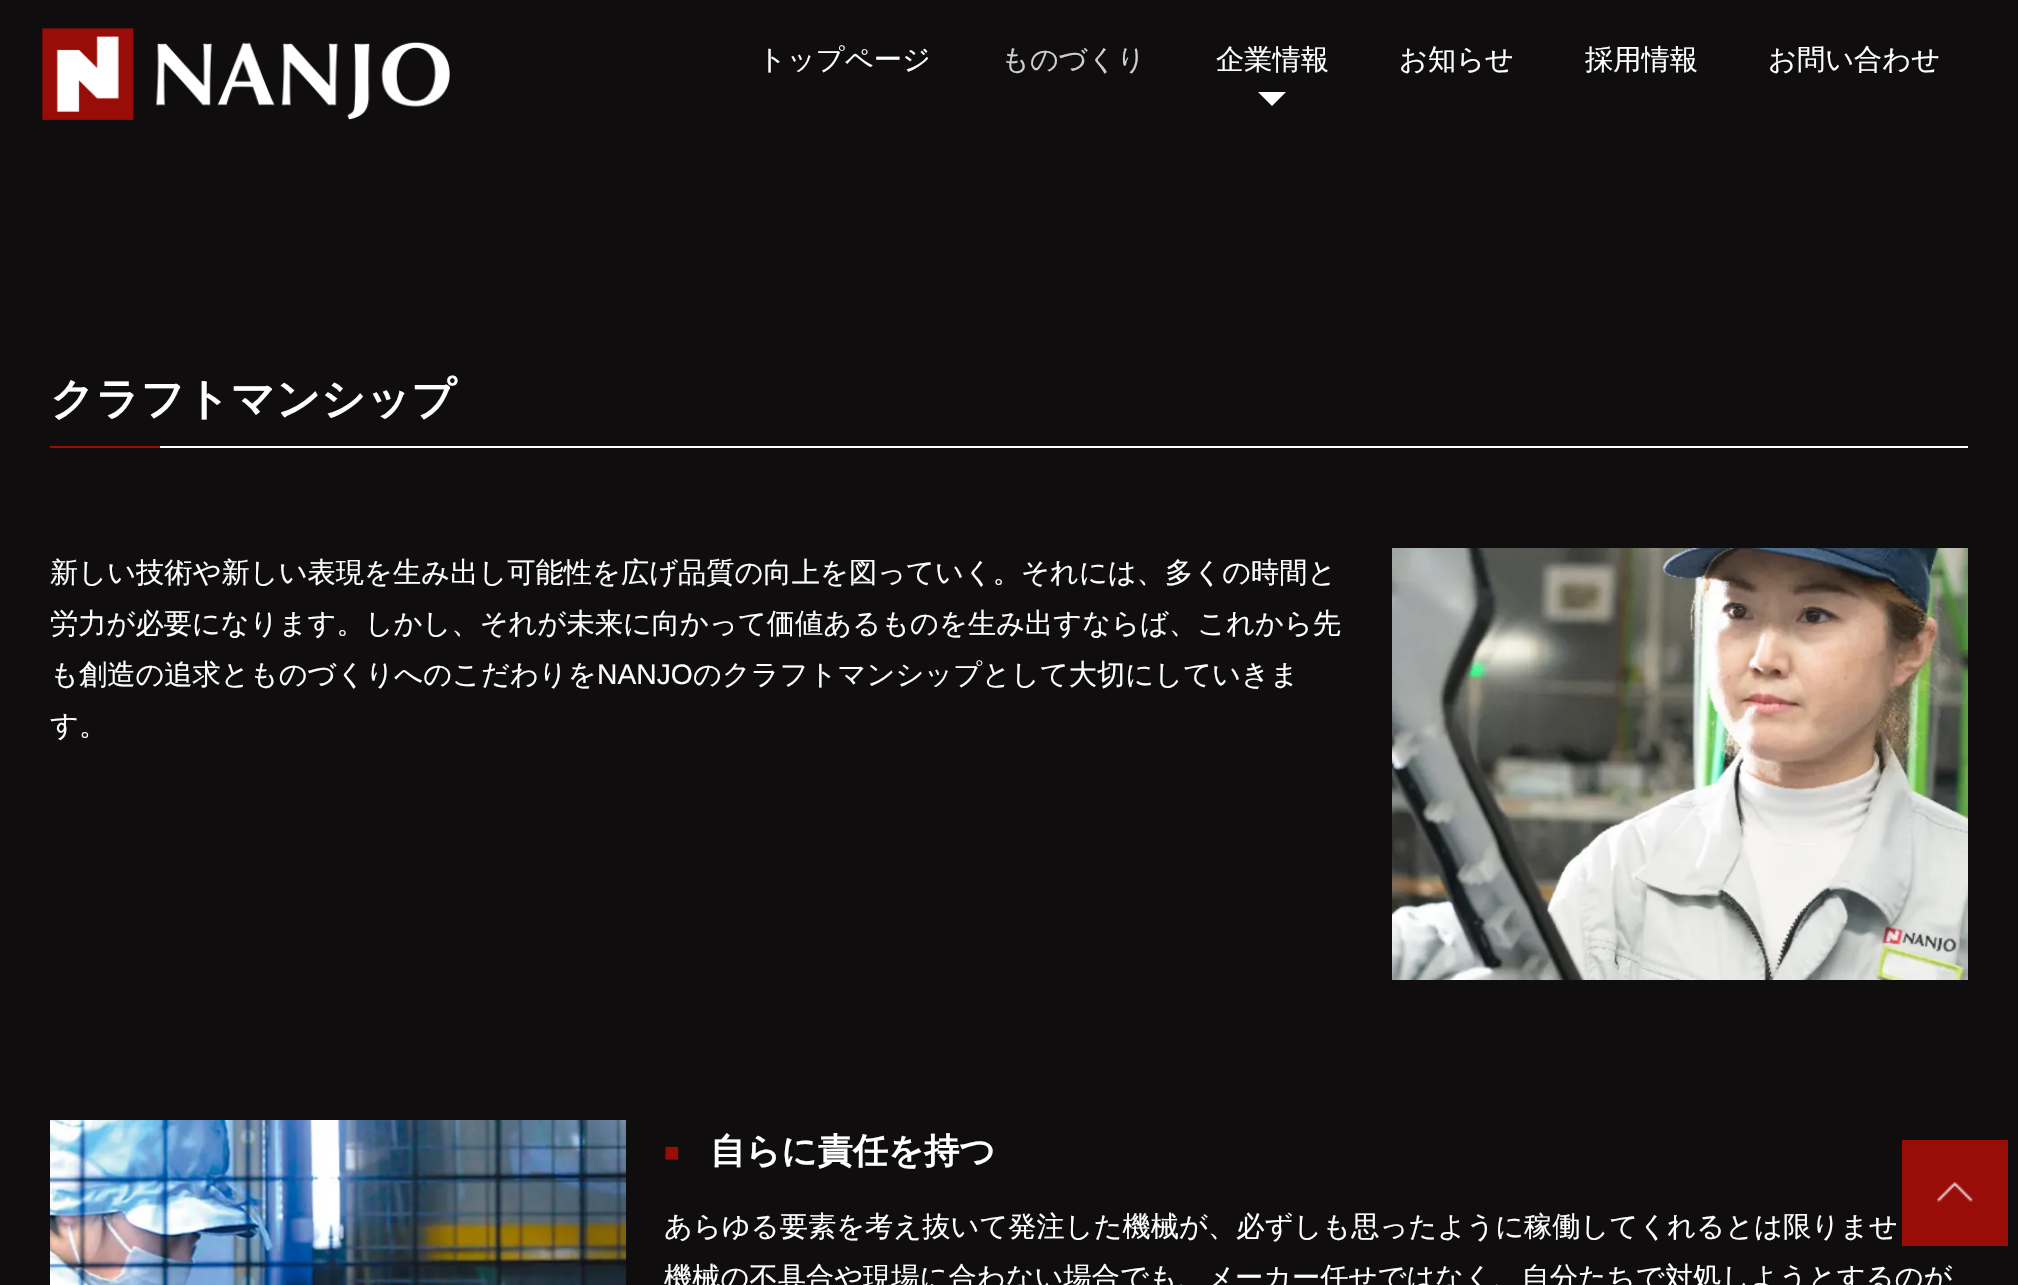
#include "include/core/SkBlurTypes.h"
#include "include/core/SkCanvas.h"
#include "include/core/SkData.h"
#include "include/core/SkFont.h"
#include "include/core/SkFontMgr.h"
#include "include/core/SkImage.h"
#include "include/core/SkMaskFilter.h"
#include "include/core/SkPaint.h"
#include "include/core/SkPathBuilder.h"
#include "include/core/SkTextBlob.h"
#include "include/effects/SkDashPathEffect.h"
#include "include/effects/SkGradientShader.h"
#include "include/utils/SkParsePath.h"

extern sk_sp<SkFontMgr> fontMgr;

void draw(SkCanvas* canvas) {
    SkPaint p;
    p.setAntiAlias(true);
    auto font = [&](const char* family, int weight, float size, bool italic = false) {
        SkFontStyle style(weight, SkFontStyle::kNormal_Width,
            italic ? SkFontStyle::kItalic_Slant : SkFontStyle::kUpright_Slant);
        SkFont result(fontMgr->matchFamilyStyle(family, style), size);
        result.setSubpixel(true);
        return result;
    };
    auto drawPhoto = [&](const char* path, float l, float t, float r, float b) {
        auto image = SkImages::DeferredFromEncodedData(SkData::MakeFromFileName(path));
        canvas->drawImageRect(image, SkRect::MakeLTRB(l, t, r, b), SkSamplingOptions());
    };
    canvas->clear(0xFF0F0D0D);
    drawPhoto("media/1.png", 42, 28, 450, 120);
    auto font1 = font("WenQuanYi Zen Hei", 500, 28.25f);
    p.setColor(0xFFFFFFFF);
    canvas->drawString("トップページ", 758, 69, font1, p);
    p.setColor(0xFFCFCFCF);
    canvas->drawString("ものづくり", 1001, 69, font1, p);
    p.setColor(0xFFFFFFFF);
    canvas->drawString("企業情報", 1216, 69, font1, p);
    canvas->drawPath(SkPathBuilder().moveTo(1258, 92).lineTo(1286, 92).lineTo(1272, 106).close().detach(), p);
    {
        const struct { const char* s; float x, y; } items[] = {
            {"お知らせ", 1399, 69},
            {"採用情報", 1585, 69},
            {"お問い合わせ", 1768, 69},
        };
        for (auto [s, x, y] : items) {
            canvas->drawString(s, x, y, font1, p);
        }
    }
    auto font2 = font("WenQuanYi Zen Hei", 700, 44.1f);
    canvas->drawString("クラフトマンシップ", 50, 414, font2, p);
    p.setColor(0xFF990D08);
    canvas->drawRect(SkRect::MakeLTRB(50, 446, 160, 448), p);
    p.setColor(0xFFFFFFFF);
    canvas->drawRect(SkRect::MakeLTRB(160, 446, 1968, 448), p);
    {
        const struct { const char* s; float x, y; } items[] = {
            {"新しい技術や新しい表現を生み出し可能性を広げ品質の向上を図っていく。それには、多くの時間と", 50, 582},
            {"労力が必要になります。しかし、それが未来に向かって価値あるものを生み出すならば、これから先", 50, 633},
            {"も創造の追求とものづくりへのこだわりを", 50, 684},
        };
        for (auto [s, x, y] : items) {
            canvas->drawString(s, x, y, font1, p);
        }
    }
    auto font3 = font("Liberation Sans", 400, 28.25f);
    canvas->drawString("NANJO", 597, 684, font3, p);
    canvas->drawString("のクラフトマンシップとして大切にしていきま", 693, 684, font1, p);
    canvas->drawString("す。", 50, 735, font1, p);
    drawPhoto("media/2.png", 1392, 548, 1968, 980);
    drawPhoto("media/3.png", 50, 1120, 626, 1285);
    auto font4 = font("Liberation Sans", 700, 26);
    p.setColor(0xFF990D08);
    canvas->drawString("■", 664, 1161, font4, p);
    auto font5 = font("WenQuanYi Zen Hei", 700, 35.25f);
    p.setColor(0xFFFFFFFF);
    canvas->drawString("自らに責任を持つ", 710, 1163, font5, p);
    canvas->drawString("あらゆる要素を考え抜いて発注した機械が、必ずしも思ったように稼働してくれるとは限りませ", 664, 1236, font1, p);
    canvas->drawString("機械の不具合や現場に合わない場合でも、メーカー任せではなく、自分たちで対処しようとするのが", 664, 1287, font1, p);
    drawPhoto("media/4.png", 1902, 1140, 2008, 1246);
}
